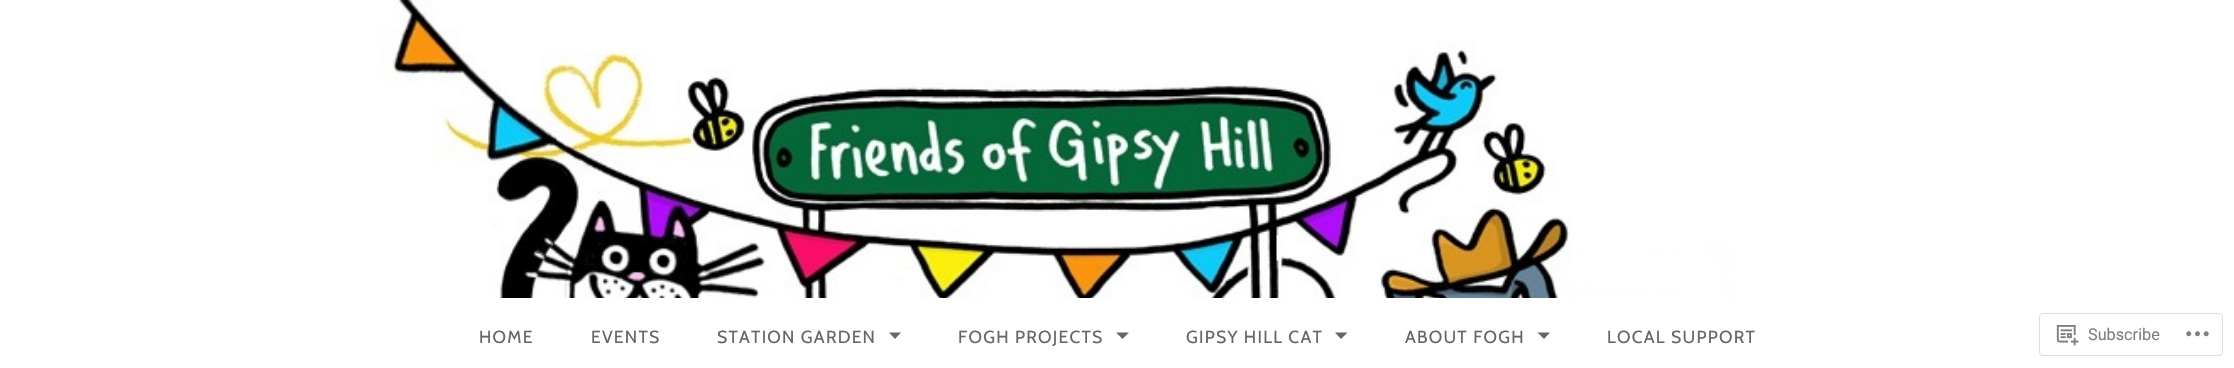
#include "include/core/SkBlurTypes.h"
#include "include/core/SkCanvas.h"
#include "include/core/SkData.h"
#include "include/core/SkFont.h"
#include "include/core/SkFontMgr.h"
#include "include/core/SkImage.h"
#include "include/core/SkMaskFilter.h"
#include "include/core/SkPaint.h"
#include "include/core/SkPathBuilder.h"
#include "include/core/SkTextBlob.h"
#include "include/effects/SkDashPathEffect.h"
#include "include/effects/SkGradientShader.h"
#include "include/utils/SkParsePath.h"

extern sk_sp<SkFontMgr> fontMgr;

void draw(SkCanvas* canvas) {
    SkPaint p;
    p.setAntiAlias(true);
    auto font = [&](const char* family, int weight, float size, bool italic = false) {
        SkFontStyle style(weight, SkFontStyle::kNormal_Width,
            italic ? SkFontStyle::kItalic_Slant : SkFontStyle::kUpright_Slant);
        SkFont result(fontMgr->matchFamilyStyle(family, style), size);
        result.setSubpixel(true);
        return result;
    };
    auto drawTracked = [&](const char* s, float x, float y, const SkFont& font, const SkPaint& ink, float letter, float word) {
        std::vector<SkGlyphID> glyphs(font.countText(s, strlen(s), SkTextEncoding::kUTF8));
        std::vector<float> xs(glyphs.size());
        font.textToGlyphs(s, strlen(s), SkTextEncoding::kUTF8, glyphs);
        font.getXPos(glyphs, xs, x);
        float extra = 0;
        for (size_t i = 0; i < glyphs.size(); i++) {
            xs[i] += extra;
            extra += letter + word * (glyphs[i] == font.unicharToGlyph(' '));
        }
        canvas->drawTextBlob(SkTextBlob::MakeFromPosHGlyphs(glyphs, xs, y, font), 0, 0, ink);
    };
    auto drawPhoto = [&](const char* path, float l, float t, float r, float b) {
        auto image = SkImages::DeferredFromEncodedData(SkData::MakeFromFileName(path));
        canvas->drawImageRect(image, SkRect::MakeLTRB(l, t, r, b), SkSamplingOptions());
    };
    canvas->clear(0xFFFFFFFF);
    drawPhoto("media/1.png", 0, 0, 2234, 298);
    auto font1 = font("Cabin", 400, 17.5f);
    p.setColor(0xFF666666);
    {
        const struct { const char* s; float x, y; } items[] = {
            {"HOME", 479, 343},
            {"EVENTS", 591, 343},
            {"STATION GARDEN", 717, 343},
        };
        for (auto [s, x, y] : items) {
            drawTracked(s, x, y, font1, p, 1.25f, 0);
        }
    }
    canvas->drawPath(SkPathBuilder().moveTo(889, 332.5f).lineTo(901, 332.5f).lineTo(895, 339).close().detach(), p);
    drawTracked("FOGH PROJECTS", 958, 343, font1, p, 1.25f, 0);
    canvas->drawPath(SkPathBuilder().moveTo(1116, 332.5f).lineTo(1129, 332.5f).lineTo(1122.5f, 339).close().detach(), p);
    drawTracked("GIPSY HILL CAT", 1186, 343, font1, p, 1.25f, 0);
    canvas->drawPath(SkPathBuilder().moveTo(1335, 332.5f).lineTo(1347.5f, 332.5f).lineTo(1341, 339).close().detach(), p);
    drawTracked("ABOUT FOGH", 1405, 343, font1, p, 1.25f, 0);
    canvas->drawPath(SkPathBuilder().moveTo(1537.5f, 332.5f).lineTo(1550, 332.5f).lineTo(1544, 339).close().detach(), p);
    drawTracked("LOCAL SUPPORT", 1607, 343, font1, p, 1.25f, 0);
    p.setStyle(SkPaint::kStroke_Style);
    p.setStrokeWidth(1);
    p.setColor(0xFFDDDDDF);
    canvas->drawRoundRect(SkRect::MakeLTRB(2039.5f, 313.5f, 2222.5f, 355.5f), 3.5f, 3.5f, p);
    drawPhoto("media/2.png", 2056, 325, 2079, 346);
    auto font2 = font("Roboto", 400, 16.25f);
    p.setStyle(SkPaint::kFill_Style);
    p.setColor(0xFF7B7F85);
    canvas->drawString("Subscribe", 2088, 340, font2, p);
    drawPhoto("media/3.png", 2186, 331, 2209, 337);
}
